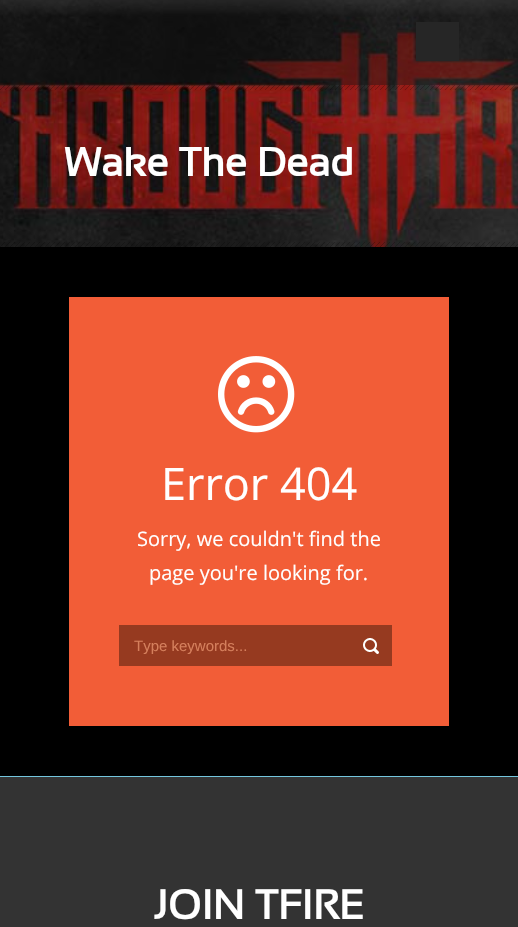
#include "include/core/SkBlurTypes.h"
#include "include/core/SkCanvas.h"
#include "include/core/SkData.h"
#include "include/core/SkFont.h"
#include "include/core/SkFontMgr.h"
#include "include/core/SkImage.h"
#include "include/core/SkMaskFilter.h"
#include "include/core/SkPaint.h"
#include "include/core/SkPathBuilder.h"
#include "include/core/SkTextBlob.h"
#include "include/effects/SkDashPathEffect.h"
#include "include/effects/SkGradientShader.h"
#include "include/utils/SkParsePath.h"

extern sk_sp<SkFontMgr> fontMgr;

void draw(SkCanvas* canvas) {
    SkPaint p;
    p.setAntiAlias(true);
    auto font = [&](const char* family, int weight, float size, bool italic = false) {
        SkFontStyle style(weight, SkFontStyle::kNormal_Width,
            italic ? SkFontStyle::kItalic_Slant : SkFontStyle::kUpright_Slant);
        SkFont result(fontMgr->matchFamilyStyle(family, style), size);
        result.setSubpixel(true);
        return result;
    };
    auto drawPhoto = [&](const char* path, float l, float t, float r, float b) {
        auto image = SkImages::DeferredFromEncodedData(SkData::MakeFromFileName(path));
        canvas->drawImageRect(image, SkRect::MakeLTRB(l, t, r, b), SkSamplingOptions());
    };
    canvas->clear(0xFF000000);
    drawPhoto("media/2.png", 0, 0, 518, 247);
    p.setColor(0x66111111);
    canvas->drawRect(SkRect::MakeLTRB(0, 0, 518, 85), p);
    p.setColor(0xFF262626);
    canvas->drawRect(SkRect::MakeLTRB(416, 22, 459, 61), p);
    drawPhoto("media/1.png", 0, 85, 518, 90);
    auto font1 = font("Sansation", 700, 40);
    p.setColor(0xFFFFFFFF);
    canvas->drawString("Wake The Dead", 64, 176, font1, p);
    drawPhoto("media/3.png", 0, 242, 518, 247);
    p.setColor(0xFFF25D37);
    canvas->drawRect(SkRect::MakeLTRB(69, 297, 449, 726), p);
    drawPhoto("media/4.png", 218, 356, 295, 433);
    auto font2 = font("Open Sans", 400, 45);
    p.setColor(0xFFFFFFFF);
    canvas->drawString("Error 404", 161, 500, font2, p);
    auto font3 = font("Open Sans", 400, 20);
    canvas->drawString("Sorry, we couldn't find the", 137, 546, font3, p);
    canvas->drawString("page you're looking for.", 149, 580, font3, p);
    p.setColor(0xFF963A20);
    canvas->drawRect(SkRect::MakeLTRB(119, 625, 392, 666), p);
    canvas->save();
    canvas->clipRect(SkRect::MakeLTRB(134, 637, 377, 654));
    auto font4 = font("Liberation Sans", 400, 15);
    p.setColor(0xFFD57F5C);
    canvas->drawString("Type keywords...", 134, 651, font4, p);
    canvas->restore();
    drawPhoto("media/5.png", 363, 638, 379, 654);
    p.setColor(0xFF333333);
    canvas->drawRect(SkRect::MakeLTRB(0, 777, 518, 927), p);
    p.setColor(0xFF74C6DE);
    canvas->drawRect(SkRect::MakeLTRB(0, 776, 518, 777), p);
    auto font5 = font("Sansation", 700, 41);
    p.setColor(0xFFFFFFFF);
    canvas->drawString("JOIN TFIRE", 154, 919, font5, p);
}
